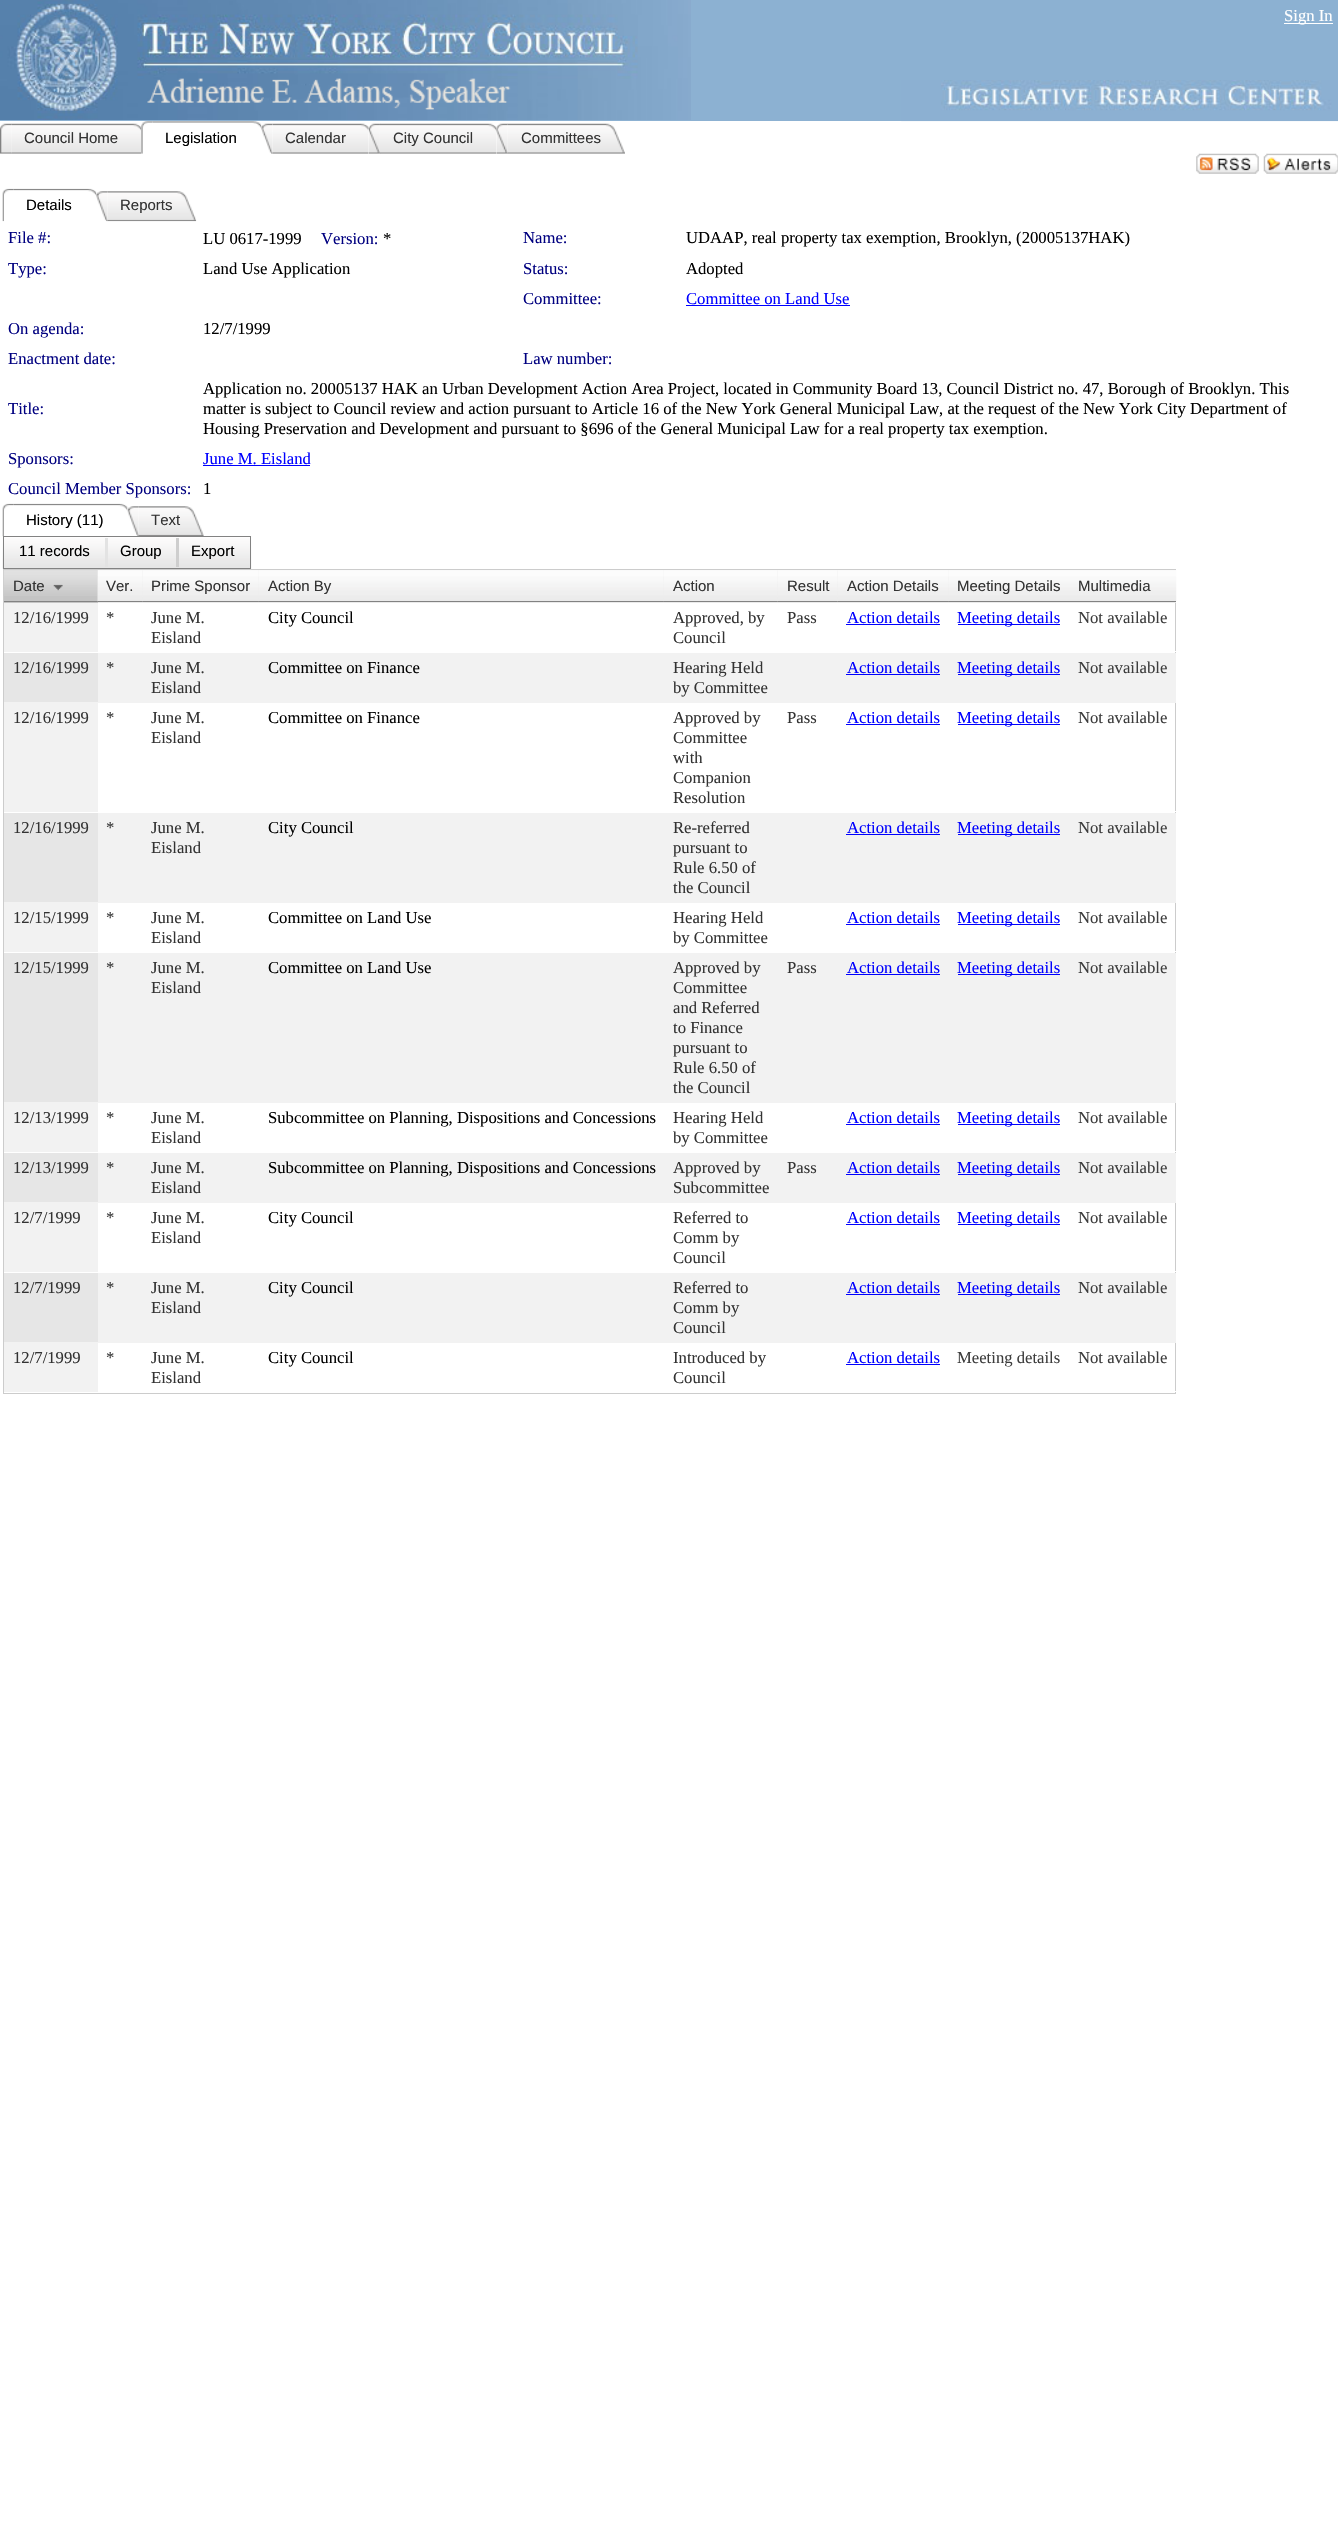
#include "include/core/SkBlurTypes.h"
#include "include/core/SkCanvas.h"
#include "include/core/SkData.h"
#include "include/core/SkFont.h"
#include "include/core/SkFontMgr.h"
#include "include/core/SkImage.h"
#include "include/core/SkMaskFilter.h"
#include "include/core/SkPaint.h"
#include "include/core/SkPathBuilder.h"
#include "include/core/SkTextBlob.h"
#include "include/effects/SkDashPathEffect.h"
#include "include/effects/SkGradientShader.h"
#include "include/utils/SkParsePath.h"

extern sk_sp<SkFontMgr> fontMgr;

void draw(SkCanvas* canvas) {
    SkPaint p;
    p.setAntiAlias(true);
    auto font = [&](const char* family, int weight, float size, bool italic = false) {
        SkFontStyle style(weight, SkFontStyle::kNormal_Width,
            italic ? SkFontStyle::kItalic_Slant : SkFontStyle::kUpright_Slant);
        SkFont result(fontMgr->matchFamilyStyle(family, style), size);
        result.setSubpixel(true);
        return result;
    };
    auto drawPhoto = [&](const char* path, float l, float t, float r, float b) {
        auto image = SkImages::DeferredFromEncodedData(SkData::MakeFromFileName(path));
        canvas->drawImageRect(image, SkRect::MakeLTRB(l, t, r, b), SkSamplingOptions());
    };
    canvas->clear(0xFFFFFFFF);
    p.setColor(0xFF8CB1D2);
    canvas->drawRect(SkRect::MakeLTRB(0, 0, 1338, 121), p);
    drawPhoto("media/1.png", 0, 0, 691, 120);
    drawPhoto("media/2.png", 901, 80, 1338, 122);
    p.setColor(0xFFFFFFFF);
    canvas->drawRect(SkRect::MakeLTRB(1284, 23, 1333, 24), p);
    auto font1 = font("Liberation Serif", 400, 16.67f);
    canvas->drawString("Sign In", 1284, 21, font1, p);
    drawPhoto("media/3.png", 0, 123, 12, 154);
    drawPhoto("media/4.png", 11, 123, 142, 154);
    auto font2 = font("Liberation Sans", 400, 15);
    p.setColor(0xFF333333);
    canvas->drawString("Council Home", 24, 143, font2, p);
    drawPhoto("media/5.png", 141, 121, 153, 154);
    drawPhoto("media/6.png", 152, 121, 262, 128);
    p.setColor(0xFF000000);
    canvas->drawString("Legislation", 165, 143, font2, p);
    drawPhoto("media/7.png", 261, 123, 273, 154);
    drawPhoto("media/8.png", 272, 123, 369, 154);
    p.setColor(0xFF333333);
    canvas->drawString("Calendar", 285, 143, font2, p);
    drawPhoto("media/9.png", 368, 123, 381, 154);
    drawPhoto("media/10.png", 380, 123, 497, 154);
    canvas->drawString("City Council", 393, 143, font2, p);
    drawPhoto("media/11.png", 496, 123, 508, 154);
    drawPhoto("media/12.png", 507, 123, 625, 154);
    canvas->drawString("Committees", 521, 143, font2, p);
    drawPhoto("media/13.png", 1196, 153, 1259, 174);
    drawPhoto("media/14.png", 1263, 153, 1338, 174);
    drawPhoto("media/15.png", 2, 188, 14, 222);
    drawPhoto("media/16.png", 13, 188, 97, 196);
    p.setColor(0xFF000000);
    canvas->drawString("Details", 26, 210, font2, p);
    drawPhoto("media/17.png", 96, 191, 108, 222);
    drawPhoto("media/18.png", 107, 191, 197, 222);
    p.setColor(0xFF333333);
    canvas->drawString("Reports", 120, 210, font2, p);
    p.setColor(0xFF000080);
    canvas->drawString("File #:", 8, 243, font1, p);
    p.setColor(0xFF000000);
    canvas->drawString("LU 0617-1999", 203, 244, font1, p);
    p.setColor(0xFF000080);
    canvas->drawString("Version:", 321, 244, font1, p);
    p.setColor(0xFF000000);
    canvas->drawString("*", 383, 244, font1, p);
    p.setColor(0xFF000080);
    canvas->drawString("Name:", 523, 243, font1, p);
    p.setColor(0xFF000000);
    canvas->drawString("UDAAP, real property tax exemption, Brooklyn, (20005137HAK)", 686, 243, font1, p);
    p.setColor(0xFF000080);
    canvas->drawString("Type:", 8, 274, font1, p);
    p.setColor(0xFF000000);
    canvas->drawString("Land Use Application", 203, 274, font1, p);
    p.setColor(0xFF000080);
    canvas->drawString("Status:", 523, 274, font1, p);
    p.setColor(0xFF000000);
    canvas->drawString("Adopted", 686, 274, font1, p);
    p.setColor(0xFF000080);
    canvas->drawString("Committee:", 523, 304, font1, p);
    p.setColor(0xFF0000FF);
    canvas->drawString("Committee on Land Use", 686, 304, font1, p);
    canvas->drawRect(SkRect::MakeLTRB(686, 305, 850, 306), p);
    p.setColor(0xFF000080);
    canvas->drawString("On agenda:", 8, 334, font1, p);
    p.setColor(0xFF000000);
    canvas->drawString("12/7/1999", 203, 334, font1, p);
    p.setColor(0xFF000080);
    {
        const struct { const char* s; float x, y; } items[] = {
            {"Enactment date:", 8, 364},
            {"Law number:", 523, 364},
            {"Title:", 8, 414},
        };
        for (auto [s, x, y] : items) {
            canvas->drawString(s, x, y, font1, p);
        }
    }
    p.setColor(0xFF000000);
    {
        const struct { const char* s; float x, y; } items[] = {
            {"Application no. 20005137 HAK an Urban Development Action Area Project, located in Community Board 13, Council District no. 47, Borough of Brooklyn. This", 203, 394},
            {"matter is subject to Council review and action pursuant to Article 16 of the New York General Municipal Law, at the request of the New York City Department of", 203, 414},
            {"Housing Preservation and Development and pursuant to §696 of the General Municipal Law for a real property tax exemption.", 203, 434},
        };
        for (auto [s, x, y] : items) {
            canvas->drawString(s, x, y, font1, p);
        }
    }
    p.setColor(0xFF000080);
    canvas->drawString("Sponsors:", 8, 464, font1, p);
    p.setColor(0xFF0000FF);
    canvas->drawString("June M. Eisland", 203, 464, font1, p);
    canvas->drawRect(SkRect::MakeLTRB(203, 465, 310, 466), p);
    p.setColor(0xFF000080);
    canvas->drawString("Council Member Sponsors:", 8, 494, font1, p);
    p.setColor(0xFF000000);
    canvas->drawString("1", 203, 494, font1, p);
    drawPhoto("media/19.png", 2, 503, 14, 536);
    drawPhoto("media/20.png", 13, 503, 128, 511);
    canvas->drawString("History (11)", 26, 525, font2, p);
    drawPhoto("media/21.png", 127, 506, 139, 536);
    drawPhoto("media/22.png", 138, 506, 204, 536);
    p.setColor(0xFF333333);
    canvas->drawString("Text", 151, 525, font2, p);
    drawPhoto("media/23.png", 2, 536, 252, 569);
    p.setStyle(SkPaint::kStroke_Style);
    p.setStrokeWidth(1);
    p.setColor(0xFF828282);
    canvas->drawRect(SkRect::MakeLTRB(3.5f, 536.5f, 250.5f, 568.5f), p);
    p.setStyle(SkPaint::kFill_Style);
    p.setColor(0xFF000000);
    canvas->drawString("11 records", 19, 556, font2, p);
    p.setColor(0xFFE3E3E3);
    canvas->drawRect(SkRect::MakeLTRB(105, 538, 108, 567), p);
    p.setColor(0xFF000000);
    canvas->drawString("Group", 120, 556, font2, p);
    p.setColor(0xFFCECECE);
    canvas->drawRect(SkRect::MakeLTRB(176, 538, 179, 567), p);
    p.setColor(0xFF000000);
    canvas->drawString("Export", 191, 556, font2, p);
    p.setStyle(SkPaint::kStroke_Style);
    p.setColor(0xFFCCCCCC);
    canvas->drawRect(SkRect::MakeLTRB(3.5f, 569.5f, 1175.5f, 1393.5f), p);
    p.setStyle(SkPaint::kFill_Style);
    p.setColor(0xFFC4C4C4);
    canvas->drawRect(SkRect::MakeLTRB(4, 570, 98, 603), p);
    drawPhoto("media/24.png", 3, 570, 98, 596);
    p.setColor(0xFF828282);
    canvas->drawRect(SkRect::MakeLTRB(4, 601, 98, 602), p);
    p.setColor(0xFF333333);
    canvas->drawString("Date", 13, 591, font2, p);
    drawPhoto("media/25.png", 53, 584, 63, 591);
    p.setColor(0xFFEAEAEA);
    canvas->drawRect(SkRect::MakeLTRB(98, 570, 1176, 603), p);
    drawPhoto("media/26.png", 97, 570, 143, 602);
    p.setColor(0xFF828282);
    canvas->drawRect(SkRect::MakeLTRB(98, 601, 143, 602), p);
    p.setColor(0xFF333333);
    canvas->drawString("Ver.", 106, 591, font2, p);
    drawPhoto("media/27.png", 142, 570, 259, 602);
    p.setColor(0xFF828282);
    canvas->drawRect(SkRect::MakeLTRB(143, 601, 259, 602), p);
    p.setColor(0xFF333333);
    canvas->drawString("Prime Sponsor", 151, 591, font2, p);
    drawPhoto("media/28.png", 258, 570, 664, 602);
    p.setColor(0xFF828282);
    canvas->drawRect(SkRect::MakeLTRB(259, 601, 664, 602), p);
    p.setColor(0xFF333333);
    canvas->drawString("Action By", 268, 591, font2, p);
    drawPhoto("media/29.png", 663, 570, 778, 602);
    p.setColor(0xFF828282);
    canvas->drawRect(SkRect::MakeLTRB(664, 601, 778, 602), p);
    p.setColor(0xFF333333);
    canvas->drawString("Action", 673, 591, font2, p);
    drawPhoto("media/30.png", 777, 570, 838, 602);
    p.setColor(0xFF828282);
    canvas->drawRect(SkRect::MakeLTRB(778, 601, 838, 602), p);
    p.setColor(0xFF333333);
    canvas->drawString("Result", 787, 591, font2, p);
    drawPhoto("media/31.png", 837, 570, 949, 602);
    p.setColor(0xFF828282);
    canvas->drawRect(SkRect::MakeLTRB(838, 601, 949, 602), p);
    p.setColor(0xFF333333);
    canvas->drawString("Action Details", 847, 591, font2, p);
    drawPhoto("media/32.png", 948, 570, 1070, 602);
    p.setColor(0xFF828282);
    canvas->drawRect(SkRect::MakeLTRB(949, 601, 1176, 602), p);
    p.setColor(0xFF333333);
    canvas->drawString("Meeting Details", 957, 591, font2, p);
    drawPhoto("media/33.png", 1070, 570, 1177, 601);
    canvas->drawString("Multimedia", 1078, 591, font2, p);
    p.setColor(0xFFF2F2F2);
    canvas->drawRect(SkRect::MakeLTRB(4, 603, 98, 652), p);
    p.setColor(0xFF333333);
    {
        const struct { const char* s; float x, y; } items[] = {
            {"12/16/1999", 13, 623},
            {"*", 106, 623},
            {"June M.", 151, 623},
            {"Eisland", 151, 643},
        };
        for (auto [s, x, y] : items) {
            canvas->drawString(s, x, y, font1, p);
        }
    }
    p.setColor(0xFF000000);
    canvas->drawString("City Council", 268, 623, font1, p);
    p.setColor(0xFF333333);
    {
        const struct { const char* s; float x, y; } items[] = {
            {"Approved, by", 673, 623},
            {"Council", 673, 643},
            {"Pass", 787, 623},
        };
        for (auto [s, x, y] : items) {
            canvas->drawString(s, x, y, font1, p);
        }
    }
    p.setColor(0xFF0000FF);
    canvas->drawString("Action details", 847, 623, font1, p);
    canvas->drawRect(SkRect::MakeLTRB(846, 624, 940, 625), p);
    canvas->drawRect(SkRect::MakeLTRB(958, 624, 1060, 625), p);
    canvas->drawString("Meeting details", 957, 623, font1, p);
    p.setColor(0xFFFFFFFF);
    canvas->drawRect(SkRect::MakeLTRB(1175, 651, 1176, 652), p);
    p.setColor(0xFF3D3D3D);
    canvas->drawString("Not available", 1078, 623, font1, p);
    p.setColor(0xFFF2F2F2);
    canvas->drawRect(SkRect::MakeLTRB(4, 653, 1176, 703), p);
    p.setColor(0xFFE6E6E6);
    canvas->drawRect(SkRect::MakeLTRB(4, 653, 98, 702), p);
    p.setColor(0xFF333333);
    {
        const struct { const char* s; float x, y; } items[] = {
            {"12/16/1999", 13, 673},
            {"*", 106, 673},
            {"June M.", 151, 673},
            {"Eisland", 151, 693},
        };
        for (auto [s, x, y] : items) {
            canvas->drawString(s, x, y, font1, p);
        }
    }
    p.setColor(0xFF000000);
    canvas->drawString("Committee on Finance", 268, 673, font1, p);
    p.setColor(0xFF333333);
    canvas->drawString("Hearing Held", 673, 673, font1, p);
    canvas->drawString("by Committee", 673, 693, font1, p);
    p.setColor(0xFF0000FF);
    canvas->drawString("Action details", 847, 673, font1, p);
    canvas->drawRect(SkRect::MakeLTRB(846, 674, 940, 675), p);
    canvas->drawRect(SkRect::MakeLTRB(958, 674, 1060, 675), p);
    canvas->drawString("Meeting details", 957, 673, font1, p);
    p.setColor(0xFF3D3D3D);
    canvas->drawString("Not available", 1078, 673, font1, p);
    p.setColor(0xFFF2F2F2);
    canvas->drawRect(SkRect::MakeLTRB(4, 703, 98, 812), p);
    p.setColor(0xFF333333);
    {
        const struct { const char* s; float x, y; } items[] = {
            {"12/16/1999", 13, 723},
            {"*", 106, 723},
            {"June M.", 151, 723},
            {"Eisland", 151, 743},
        };
        for (auto [s, x, y] : items) {
            canvas->drawString(s, x, y, font1, p);
        }
    }
    p.setColor(0xFF000000);
    canvas->drawString("Committee on Finance", 268, 723, font1, p);
    p.setColor(0xFF333333);
    {
        const struct { const char* s; float x, y; } items[] = {
            {"Approved by", 673, 723},
            {"Committee", 673, 743},
            {"with", 673, 763},
            {"Companion", 673, 783},
            {"Resolution", 673, 803},
            {"Pass", 787, 723},
        };
        for (auto [s, x, y] : items) {
            canvas->drawString(s, x, y, font1, p);
        }
    }
    p.setColor(0xFF0000FF);
    canvas->drawString("Action details", 847, 723, font1, p);
    canvas->drawRect(SkRect::MakeLTRB(846, 724, 940, 725), p);
    canvas->drawRect(SkRect::MakeLTRB(958, 724, 1060, 725), p);
    canvas->drawString("Meeting details", 957, 723, font1, p);
    p.setColor(0xFFFFFFFF);
    canvas->drawRect(SkRect::MakeLTRB(1175, 811, 1176, 812), p);
    p.setColor(0xFF3D3D3D);
    canvas->drawString("Not available", 1078, 723, font1, p);
    p.setColor(0xFFF2F2F2);
    canvas->drawRect(SkRect::MakeLTRB(4, 813, 1176, 903), p);
    p.setColor(0xFFE6E6E6);
    canvas->drawRect(SkRect::MakeLTRB(4, 813, 98, 902), p);
    p.setColor(0xFF333333);
    {
        const struct { const char* s; float x, y; } items[] = {
            {"12/16/1999", 13, 833},
            {"*", 106, 833},
            {"June M.", 151, 833},
            {"Eisland", 151, 853},
        };
        for (auto [s, x, y] : items) {
            canvas->drawString(s, x, y, font1, p);
        }
    }
    p.setColor(0xFF000000);
    canvas->drawString("City Council", 268, 833, font1, p);
    p.setColor(0xFF333333);
    {
        const struct { const char* s; float x, y; } items[] = {
            {"Re-referred", 673, 833},
            {"pursuant to", 673, 853},
            {"Rule 6.50 of", 673, 873},
            {"the Council", 673, 893},
        };
        for (auto [s, x, y] : items) {
            canvas->drawString(s, x, y, font1, p);
        }
    }
    p.setColor(0xFF0000FF);
    canvas->drawString("Action details", 847, 833, font1, p);
    canvas->drawRect(SkRect::MakeLTRB(846, 834, 940, 835), p);
    canvas->drawRect(SkRect::MakeLTRB(958, 834, 1060, 835), p);
    canvas->drawString("Meeting details", 957, 833, font1, p);
    p.setColor(0xFF3D3D3D);
    canvas->drawString("Not available", 1078, 833, font1, p);
    p.setColor(0xFFF2F2F2);
    canvas->drawRect(SkRect::MakeLTRB(4, 903, 98, 952), p);
    p.setColor(0xFF333333);
    {
        const struct { const char* s; float x, y; } items[] = {
            {"12/15/1999", 13, 923},
            {"*", 106, 923},
            {"June M.", 151, 923},
            {"Eisland", 151, 943},
        };
        for (auto [s, x, y] : items) {
            canvas->drawString(s, x, y, font1, p);
        }
    }
    p.setColor(0xFF000000);
    canvas->drawString("Committee on Land Use", 268, 923, font1, p);
    p.setColor(0xFF333333);
    canvas->drawString("Hearing Held", 673, 923, font1, p);
    canvas->drawString("by Committee", 673, 943, font1, p);
    p.setColor(0xFF0000FF);
    canvas->drawString("Action details", 847, 923, font1, p);
    canvas->drawRect(SkRect::MakeLTRB(846, 924, 940, 925), p);
    canvas->drawRect(SkRect::MakeLTRB(958, 924, 1060, 925), p);
    canvas->drawString("Meeting details", 957, 923, font1, p);
    p.setColor(0xFFFFFFFF);
    canvas->drawRect(SkRect::MakeLTRB(1175, 951, 1176, 952), p);
    p.setColor(0xFF3D3D3D);
    canvas->drawString("Not available", 1078, 923, font1, p);
    p.setColor(0xFFF2F2F2);
    canvas->drawRect(SkRect::MakeLTRB(4, 953, 1176, 1103), p);
    p.setColor(0xFFE6E6E6);
    canvas->drawRect(SkRect::MakeLTRB(4, 953, 98, 1102), p);
    p.setColor(0xFF333333);
    {
        const struct { const char* s; float x, y; } items[] = {
            {"12/15/1999", 13, 973},
            {"*", 106, 973},
            {"June M.", 151, 973},
            {"Eisland", 151, 993},
        };
        for (auto [s, x, y] : items) {
            canvas->drawString(s, x, y, font1, p);
        }
    }
    p.setColor(0xFF000000);
    canvas->drawString("Committee on Land Use", 268, 973, font1, p);
    p.setColor(0xFF333333);
    {
        const struct { const char* s; float x, y; } items[] = {
            {"Approved by", 673, 973},
            {"Committee", 673, 993},
            {"and Referred", 673, 1013},
            {"to Finance", 673, 1033},
            {"pursuant to", 673, 1053},
            {"Rule 6.50 of", 673, 1073},
            {"the Council", 673, 1093},
            {"Pass", 787, 973},
        };
        for (auto [s, x, y] : items) {
            canvas->drawString(s, x, y, font1, p);
        }
    }
    p.setColor(0xFF0000FF);
    canvas->drawString("Action details", 847, 973, font1, p);
    canvas->drawRect(SkRect::MakeLTRB(846, 974, 940, 975), p);
    canvas->drawRect(SkRect::MakeLTRB(958, 974, 1060, 975), p);
    canvas->drawString("Meeting details", 957, 973, font1, p);
    p.setColor(0xFF3D3D3D);
    canvas->drawString("Not available", 1078, 973, font1, p);
    p.setColor(0xFFF2F2F2);
    canvas->drawRect(SkRect::MakeLTRB(4, 1103, 98, 1152), p);
    p.setColor(0xFF333333);
    {
        const struct { const char* s; float x, y; } items[] = {
            {"12/13/1999", 13, 1123},
            {"*", 106, 1123},
            {"June M.", 151, 1123},
            {"Eisland", 151, 1143},
        };
        for (auto [s, x, y] : items) {
            canvas->drawString(s, x, y, font1, p);
        }
    }
    p.setColor(0xFF000000);
    canvas->drawString("Subcommittee on Planning, Dispositions and Concessions", 268, 1123, font1, p);
    p.setColor(0xFF333333);
    canvas->drawString("Hearing Held", 673, 1123, font1, p);
    canvas->drawString("by Committee", 673, 1143, font1, p);
    p.setColor(0xFF0000FF);
    canvas->drawString("Action details", 847, 1123, font1, p);
    canvas->drawRect(SkRect::MakeLTRB(846, 1124, 940, 1125), p);
    canvas->drawRect(SkRect::MakeLTRB(958, 1124, 1060, 1125), p);
    canvas->drawString("Meeting details", 957, 1123, font1, p);
    p.setColor(0xFFFFFFFF);
    canvas->drawRect(SkRect::MakeLTRB(1175, 1151, 1176, 1152), p);
    p.setColor(0xFF3D3D3D);
    canvas->drawString("Not available", 1078, 1123, font1, p);
    p.setColor(0xFFF2F2F2);
    canvas->drawRect(SkRect::MakeLTRB(4, 1153, 1176, 1203), p);
    p.setColor(0xFFE6E6E6);
    canvas->drawRect(SkRect::MakeLTRB(4, 1153, 98, 1202), p);
    p.setColor(0xFF333333);
    {
        const struct { const char* s; float x, y; } items[] = {
            {"12/13/1999", 13, 1173},
            {"*", 106, 1173},
            {"June M.", 151, 1173},
            {"Eisland", 151, 1193},
        };
        for (auto [s, x, y] : items) {
            canvas->drawString(s, x, y, font1, p);
        }
    }
    p.setColor(0xFF000000);
    canvas->drawString("Subcommittee on Planning, Dispositions and Concessions", 268, 1173, font1, p);
    p.setColor(0xFF333333);
    {
        const struct { const char* s; float x, y; } items[] = {
            {"Approved by", 673, 1173},
            {"Subcommittee", 673, 1193},
            {"Pass", 787, 1173},
        };
        for (auto [s, x, y] : items) {
            canvas->drawString(s, x, y, font1, p);
        }
    }
    p.setColor(0xFF0000FF);
    canvas->drawString("Action details", 847, 1173, font1, p);
    canvas->drawRect(SkRect::MakeLTRB(846, 1174, 940, 1175), p);
    canvas->drawRect(SkRect::MakeLTRB(958, 1174, 1060, 1175), p);
    canvas->drawString("Meeting details", 957, 1173, font1, p);
    p.setColor(0xFF3D3D3D);
    canvas->drawString("Not available", 1078, 1173, font1, p);
    p.setColor(0xFFF2F2F2);
    canvas->drawRect(SkRect::MakeLTRB(4, 1203, 98, 1272), p);
    p.setColor(0xFF333333);
    {
        const struct { const char* s; float x, y; } items[] = {
            {"12/7/1999", 13, 1223},
            {"*", 106, 1223},
            {"June M.", 151, 1223},
            {"Eisland", 151, 1243},
        };
        for (auto [s, x, y] : items) {
            canvas->drawString(s, x, y, font1, p);
        }
    }
    p.setColor(0xFF000000);
    canvas->drawString("City Council", 268, 1223, font1, p);
    p.setColor(0xFF333333);
    {
        const struct { const char* s; float x, y; } items[] = {
            {"Referred to", 673, 1223},
            {"Comm by", 673, 1243},
            {"Council", 673, 1263},
        };
        for (auto [s, x, y] : items) {
            canvas->drawString(s, x, y, font1, p);
        }
    }
    p.setColor(0xFF0000FF);
    canvas->drawString("Action details", 847, 1223, font1, p);
    canvas->drawRect(SkRect::MakeLTRB(846, 1224, 940, 1225), p);
    canvas->drawRect(SkRect::MakeLTRB(958, 1224, 1060, 1225), p);
    canvas->drawString("Meeting details", 957, 1223, font1, p);
    p.setColor(0xFFFFFFFF);
    canvas->drawRect(SkRect::MakeLTRB(1175, 1271, 1176, 1272), p);
    p.setColor(0xFF3D3D3D);
    canvas->drawString("Not available", 1078, 1223, font1, p);
    p.setColor(0xFFF2F2F2);
    canvas->drawRect(SkRect::MakeLTRB(4, 1273, 1176, 1343), p);
    p.setColor(0xFFE6E6E6);
    canvas->drawRect(SkRect::MakeLTRB(4, 1273, 98, 1342), p);
    p.setColor(0xFF333333);
    {
        const struct { const char* s; float x, y; } items[] = {
            {"12/7/1999", 13, 1293},
            {"*", 106, 1293},
            {"June M.", 151, 1293},
            {"Eisland", 151, 1313},
        };
        for (auto [s, x, y] : items) {
            canvas->drawString(s, x, y, font1, p);
        }
    }
    p.setColor(0xFF000000);
    canvas->drawString("City Council", 268, 1293, font1, p);
    p.setColor(0xFF333333);
    {
        const struct { const char* s; float x, y; } items[] = {
            {"Referred to", 673, 1293},
            {"Comm by", 673, 1313},
            {"Council", 673, 1333},
        };
        for (auto [s, x, y] : items) {
            canvas->drawString(s, x, y, font1, p);
        }
    }
    p.setColor(0xFF0000FF);
    canvas->drawString("Action details", 847, 1293, font1, p);
    canvas->drawRect(SkRect::MakeLTRB(846, 1294, 940, 1295), p);
    canvas->drawRect(SkRect::MakeLTRB(958, 1294, 1060, 1295), p);
    canvas->drawString("Meeting details", 957, 1293, font1, p);
    p.setColor(0xFF3D3D3D);
    canvas->drawString("Not available", 1078, 1293, font1, p);
    p.setColor(0xFFF2F2F2);
    canvas->drawRect(SkRect::MakeLTRB(4, 1343, 98, 1392), p);
    p.setColor(0xFF333333);
    {
        const struct { const char* s; float x, y; } items[] = {
            {"12/7/1999", 13, 1363},
            {"*", 106, 1363},
            {"June M.", 151, 1363},
            {"Eisland", 151, 1383},
        };
        for (auto [s, x, y] : items) {
            canvas->drawString(s, x, y, font1, p);
        }
    }
    p.setColor(0xFF000000);
    canvas->drawString("City Council", 268, 1363, font1, p);
    p.setColor(0xFF333333);
    canvas->drawString("Introduced by", 673, 1363, font1, p);
    canvas->drawString("Council", 673, 1383, font1, p);
    p.setColor(0xFF0000FF);
    canvas->drawString("Action details", 847, 1363, font1, p);
    canvas->drawRect(SkRect::MakeLTRB(846, 1364, 940, 1365), p);
    p.setColor(0xFF3D3D3D);
    canvas->drawString("Meeting details", 957, 1363, font1, p);
    p.setColor(0xFFFFFFFF);
    canvas->drawRect(SkRect::MakeLTRB(1175, 1391, 1176, 1392), p);
    p.setColor(0xFF3D3D3D);
    canvas->drawString("Not available", 1078, 1363, font1, p);
}
